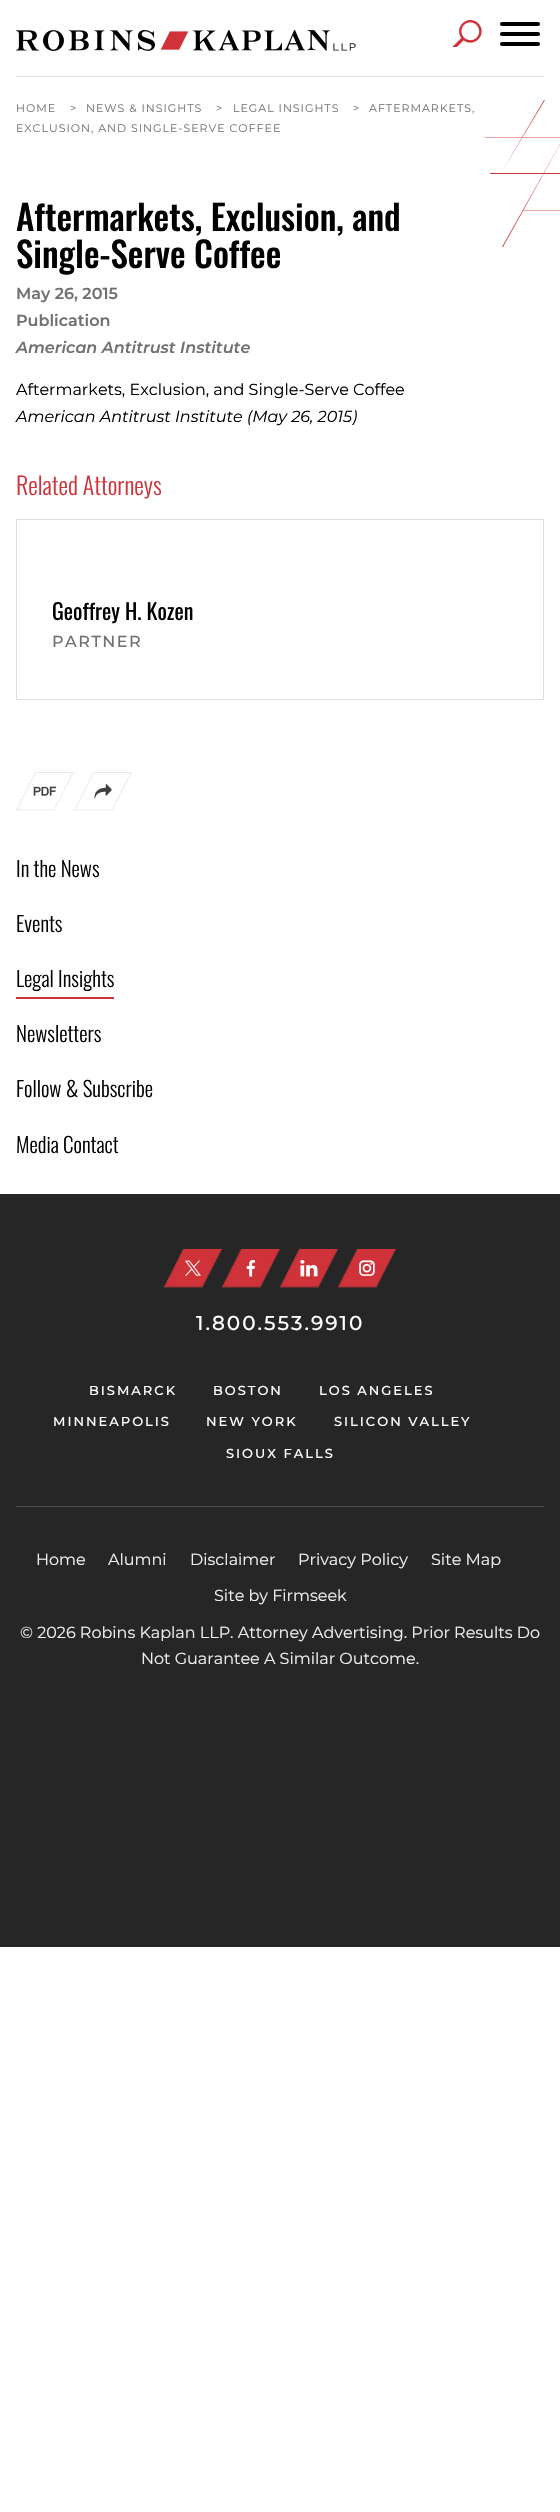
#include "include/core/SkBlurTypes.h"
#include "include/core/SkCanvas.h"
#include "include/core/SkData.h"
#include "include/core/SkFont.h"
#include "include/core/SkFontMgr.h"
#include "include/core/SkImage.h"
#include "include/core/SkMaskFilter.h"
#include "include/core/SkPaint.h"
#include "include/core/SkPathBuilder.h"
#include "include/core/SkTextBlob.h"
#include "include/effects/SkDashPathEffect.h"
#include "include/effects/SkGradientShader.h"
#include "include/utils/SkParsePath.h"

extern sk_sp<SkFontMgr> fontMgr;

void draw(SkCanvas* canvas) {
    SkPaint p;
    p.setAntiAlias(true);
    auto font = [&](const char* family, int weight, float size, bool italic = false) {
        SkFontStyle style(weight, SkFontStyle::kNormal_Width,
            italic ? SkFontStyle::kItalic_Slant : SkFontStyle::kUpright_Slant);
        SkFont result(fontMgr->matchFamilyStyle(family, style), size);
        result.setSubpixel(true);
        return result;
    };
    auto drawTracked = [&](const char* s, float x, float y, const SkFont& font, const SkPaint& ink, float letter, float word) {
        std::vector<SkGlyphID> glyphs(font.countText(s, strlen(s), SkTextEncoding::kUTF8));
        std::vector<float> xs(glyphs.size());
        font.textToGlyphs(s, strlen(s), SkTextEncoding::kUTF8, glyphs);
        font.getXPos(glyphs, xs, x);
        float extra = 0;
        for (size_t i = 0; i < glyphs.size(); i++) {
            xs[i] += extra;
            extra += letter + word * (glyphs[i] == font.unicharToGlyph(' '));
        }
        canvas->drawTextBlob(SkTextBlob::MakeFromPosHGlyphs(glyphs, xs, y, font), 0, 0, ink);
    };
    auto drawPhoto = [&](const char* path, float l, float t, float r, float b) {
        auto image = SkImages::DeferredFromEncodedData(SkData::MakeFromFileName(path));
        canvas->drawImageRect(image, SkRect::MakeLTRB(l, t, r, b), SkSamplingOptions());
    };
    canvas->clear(0xFFFFFFFF);
    p.setColor(0xFFDFDEDE);
    canvas->drawRect(SkRect::MakeLTRB(16, 76, 544, 77), p);
    drawPhoto("media/1.png", 16, 30, 356, 51);
    drawPhoto("media/2.png", 452, 20, 482, 47);
    p.setColor(0xFF000000);
    canvas->drawRoundRect(SkRect::MakeLTRB(500, 22, 540, 26), 2, 2, p);
    canvas->drawRoundRect(SkRect::MakeLTRB(500, 32, 540, 36), 2, 2, p);
    canvas->drawRoundRect(SkRect::MakeLTRB(500, 42, 540, 46), 2, 2, p);
    auto font1 = font("Montserrat", 400, 11);
    p.setColor(0xFF767676);
    {
        const struct { const char* s; float x, y; } items[] = {
            {"HOME", 16, 112},
            {">", 70, 112},
            {"NEWS & INSIGHTS", 86, 112},
            {">", 216, 112},
            {"LEGAL INSIGHTS", 233, 112},
            {">", 353, 112},
            {"AFTERMARKETS,", 369, 112},
            {"EXCLUSION, AND SINGLE-SERVE COFFEE", 16, 132},
        };
        for (auto [s, x, y] : items) {
            drawTracked(s, x, y, font1, p, 1, 0);
        }
    }
    auto font2 = font("Oswald", 500, 35);
    p.setColor(0xFF000000);
    canvas->drawString("Aftermarkets, Exclusion, and", 16, 231, font2, p);
    canvas->drawString("Single-Serve Coffee", 16, 268, font2, p);
    auto font3 = font("Montserrat", 600, 16);
    p.setColor(0xFF707070);
    canvas->drawString("May 26, 2015", 16, 299, font3, p);
    canvas->drawString("Publication", 16, 326, font3, p);
    auto font4 = font("Montserrat", 600, 16, true);
    canvas->drawString("American Antitrust Institute", 16, 353, font4, p);
    p.setColor(0xFFCF3339);
    canvas->drawPath(SkPathBuilder().moveTo(501, 173).lineTo(544, 100).lineTo(545, 100).close().detach(), p);
    p.setColor(0x6ECF3339);
    canvas->drawRect(SkRect::MakeLTRB(485, 137, 560, 138), p);
    p.setColor(0xFFCF3339);
    canvas->drawRoundRect(SkRect::MakeLTRB(490, 173, 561, 174), 0.5f, 0.5f, p);
    canvas->drawPath(SkPathBuilder().moveTo(502, 247).lineTo(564, 137).lineTo(503, 247).close().detach(), p);
    p.setColor(0x6ECF3339);
    canvas->drawRect(SkRect::MakeLTRB(523, 210, 560, 211), p);
    auto font5 = font("Montserrat", 400, 16);
    p.setColor(0xFF000000);
    canvas->drawString("Aftermarkets, Exclusion, and Single-Serve Coffee", 16, 395, font5, p);
    auto font6 = font("Montserrat", 400, 16, true);
    canvas->drawString("American Antitrust Institute (May 26, 2015)", 16, 422, font6, p);
    auto font7 = font("Oswald", 300, 24);
    p.setColor(0xFFCF3339);
    canvas->drawString("Related Attorneys", 16, 495, font7, p);
    p.setStyle(SkPaint::kStroke_Style);
    p.setStrokeWidth(1);
    p.setColor(0xFFDFDEDE);
    canvas->drawRect(SkRect::MakeLTRB(16.5f, 519.5f, 543.5f, 699.5f), p);
    auto font8 = font("Oswald", 400, 22);
    p.setStyle(SkPaint::kFill_Style);
    p.setColor(0xFF000000);
    canvas->drawString("Geoffrey H. Kozen", 52, 620, font8, p);
    auto font9 = font("Montserrat", 500, 16);
    p.setColor(0xFF707070);
    drawTracked("PARTNER", 52, 647, font9, p, 1.5f, 0);
    drawPhoto("media/3.png", 16, 772, 74, 811);
    drawPhoto("media/4.png", 74, 772, 132, 811);
    auto font10 = font("Oswald", 300, 21);
    p.setColor(0xFF000000);
    {
        const struct { const char* s; float x, y; } items[] = {
            {"In the News", 16, 877},
            {"Events", 16, 932},
            {"Legal Insights", 16, 987},
        };
        for (auto [s, x, y] : items) {
            canvas->drawString(s, x, y, font10, p);
        }
    }
    p.setColor(0xFFCF3339);
    canvas->drawRect(SkRect::MakeLTRB(16, 997, 114, 999), p);
    p.setColor(0xFF000000);
    {
        const struct { const char* s; float x, y; } items[] = {
            {"Newsletters", 16, 1042},
            {"Follow & Subscribe", 16, 1097},
            {"Media Contact", 16, 1153},
        };
        for (auto [s, x, y] : items) {
            canvas->drawString(s, x, y, font10, p);
        }
    }
    p.setColor(0xFF262626);
    canvas->drawRect(SkRect::MakeLTRB(0, 1194, 560, 1947), p);
    p.setColor(0xFF4D4D4D);
    canvas->drawRect(SkRect::MakeLTRB(16, 1506, 544, 1507), p);
    drawPhoto("media/5.png", 164, 1249, 222, 1288);
    drawPhoto("media/6.png", 222, 1249, 280, 1288);
    drawPhoto("media/7.png", 280, 1249, 338, 1288);
    drawPhoto("media/8.png", 338, 1249, 396, 1288);
    auto font11 = font("Montserrat", 500, 20);
    p.setColor(0xFFFFFFFF);
    drawTracked("1.800.553.9910", 196, 1330, font11, p, 2, 0);
    auto font12 = font("Montserrat", 500, 13);
    {
        const struct { const char* s; float x, y; } items[] = {
            {"BISMARCK", 89, 1395},
            {"BOSTON", 213, 1395},
            {"LOS ANGELES", 319, 1395},
            {"MINNEAPOLIS", 53, 1426},
            {"NEW YORK", 206, 1426},
            {"SILICON VALLEY", 334, 1426},
            {"SIOUX FALLS", 226, 1458},
        };
        for (auto [s, x, y] : items) {
            drawTracked(s, x, y, font12, p, 2, 0);
        }
    }
    p.setColor(0xFFEFEFEF);
    {
        const struct { const char* s; float x, y; } items[] = {
            {"Home", 36, 1565},
            {"Alumni", 108, 1565},
            {"Disclaimer", 190, 1565},
            {"Privacy Policy", 298, 1565},
            {"Site Map", 431, 1565},
            {"Site by Firmseek", 214, 1601},
            {"© 2026 Robins Kaplan LLP. Attorney Advertising. Prior Results Do", 20, 1638},
            {"Not Guarantee A Similar Outcome.", 141, 1664},
        };
        for (auto [s, x, y] : items) {
            canvas->drawString(s, x, y, font5, p);
        }
    }
}
